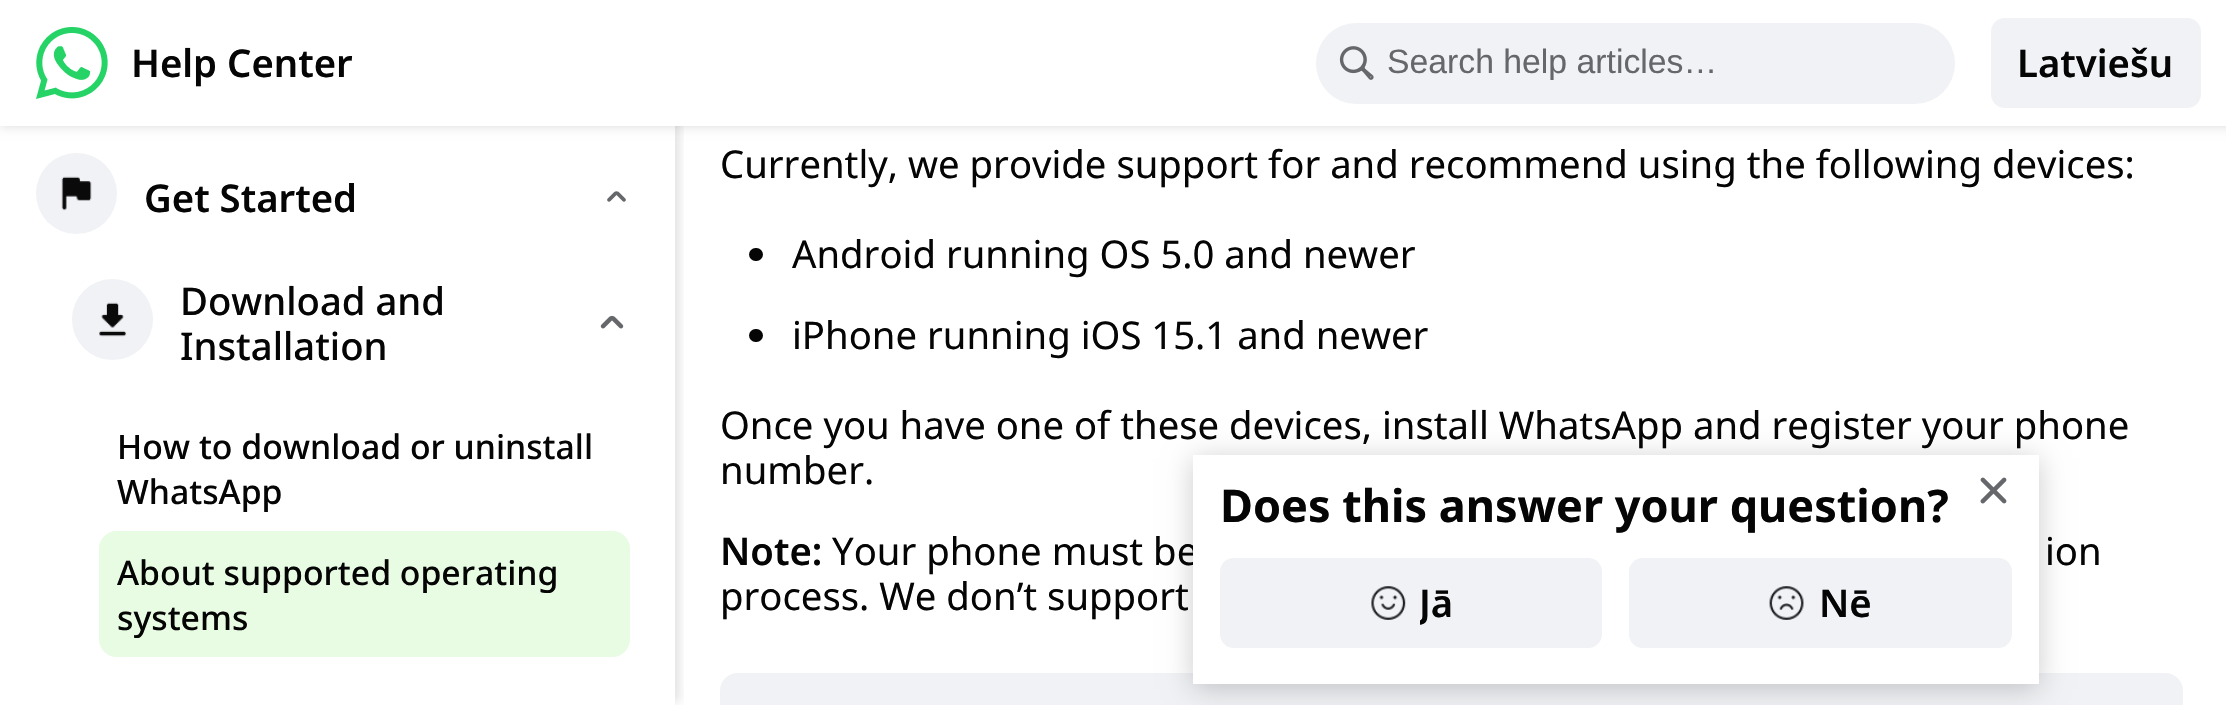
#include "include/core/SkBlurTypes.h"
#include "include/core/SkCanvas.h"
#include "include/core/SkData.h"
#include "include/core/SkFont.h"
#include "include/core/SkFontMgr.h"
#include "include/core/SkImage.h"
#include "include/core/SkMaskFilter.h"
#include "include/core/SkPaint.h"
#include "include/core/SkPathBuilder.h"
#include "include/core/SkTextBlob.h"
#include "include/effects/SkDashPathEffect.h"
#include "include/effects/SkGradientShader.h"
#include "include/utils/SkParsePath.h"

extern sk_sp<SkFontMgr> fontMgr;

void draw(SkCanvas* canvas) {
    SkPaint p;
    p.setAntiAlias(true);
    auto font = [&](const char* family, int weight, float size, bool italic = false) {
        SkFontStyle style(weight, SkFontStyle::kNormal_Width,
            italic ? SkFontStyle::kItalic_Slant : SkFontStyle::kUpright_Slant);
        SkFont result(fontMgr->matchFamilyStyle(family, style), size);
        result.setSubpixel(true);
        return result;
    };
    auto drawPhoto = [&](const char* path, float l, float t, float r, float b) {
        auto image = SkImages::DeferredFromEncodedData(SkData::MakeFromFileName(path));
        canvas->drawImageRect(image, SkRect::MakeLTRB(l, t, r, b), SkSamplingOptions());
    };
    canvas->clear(0xFFFFFFFF);
    p.setColor(0x1A000000);
    p.setMaskFilter(SkMaskFilter::MakeBlur(kNormal_SkBlurStyle, 4.5f));
    canvas->drawRect(SkRect::MakeLTRB(0, 2, 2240, 128), p);
    p.setMaskFilter(nullptr);
    canvas->save();
    canvas->clipRect(SkRect::MakeLTRB(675, 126, 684, 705));
    p.setMaskFilter(SkMaskFilter::MakeBlur(kNormal_SkBlurStyle, 4.5f));
    canvas->drawRect(SkRect::MakeLTRB(14, 5, 680, 702), p);
    p.setMaskFilter(nullptr);
    canvas->restore();
    p.setColor(0xFFFFFFFF);
    canvas->drawRect(SkRect::MakeLTRB(0, 0, 2226, 126), p);
    drawPhoto("media/1.png", 36, 27, 108, 99);
    auto font1 = font("Noto Sans", 600, 38.25f);
    p.setColor(0xFF050505);
    canvas->drawString("Help Center", 131, 77, font1, p);
    p.setColor(0xFFF0F2F5);
    canvas->drawRoundRect(SkRect::MakeLTRB(1316, 23, 1955, 104), 40.5f, 40.5f, p);
    drawPhoto("media/2.png", 1339, 46, 1374, 80);
    auto font2 = font("Liberation Sans", 400, 33.75f);
    p.setColor(0xFF65676B);
    canvas->drawString("Search help articles…", 1387, 73, font2, p);
    p.setColor(0xFFF0F2F5);
    canvas->drawRoundRect(SkRect::MakeLTRB(1991, 18, 2201, 108), 14, 14, p);
    p.setColor(0xFF050505);
    canvas->drawString("Latviešu", 2017, 77, font1, p);
    p.setColor(0xFFF0F2F5);
    canvas->drawCircle(76.5f, 193.5f, 40.5f, p);
    drawPhoto("media/3.png", 61, 176, 92, 211);
    p.setColor(0xFF050505);
    canvas->drawString("Get Started", 144, 212, font1, p);
    drawPhoto("media/4.png", 607, 191, 626, 202);
    p.setColor(0xFFF0F2F5);
    canvas->drawCircle(112.5f, 319.5f, 40.5f, p);
    drawPhoto("media/5.png", 99, 302, 127, 337);
    auto font3 = font("Noto Sans", 500, 38.25f);
    p.setColor(0xFF050505);
    canvas->drawString("Download and", 180, 315, font3, p);
    canvas->drawString("Installation", 180, 360, font3, p);
    drawPhoto("media/6.png", 600, 315, 624, 329);
    auto font4 = font("Noto Sans", 500, 33.75f);
    canvas->drawString("How to download or uninstall", 117, 459, font4, p);
    canvas->drawString("WhatsApp", 117, 504, font4, p);
    p.setColor(0xFFE7FCE3);
    canvas->drawRoundRect(SkRect::MakeLTRB(99, 531, 630, 657), 18, 18, p);
    p.setColor(0xFF050505);
    canvas->drawString("About supported operating", 117, 585, font4, p);
    canvas->drawString("systems", 117, 630, font4, p);
    auto font5 = font("Noto Sans", 400, 38.25f);
    canvas->drawString("Currently, we provide support for and recommend using the following devices:", 720, 178, font5, p);
    canvas->drawRoundRect(SkRect::MakeLTRB(749, 248, 763, 261), 6.5f, 6.5f, p);
    canvas->drawString("Android running OS 5.0 and newer", 792, 268, font5, p);
    canvas->drawRoundRect(SkRect::MakeLTRB(749, 329, 763, 342), 6.5f, 6.5f, p);
    {
        const struct { const char* s; float x, y; } items[] = {
            {"iPhone running iOS 15.1 and newer", 792, 349},
            {"Once you have one of these devices, install WhatsApp and register your phone", 720, 439},
            {"number.", 720, 484},
        };
        for (auto [s, x, y] : items) {
            canvas->drawString(s, x, y, font5, p);
        }
    }
    canvas->drawString("Note:", 720, 565, font1, p);
    {
        const struct { const char* s; float x, y; } items[] = {
            {"Your phone must be", 832, 565},
            {"ion", 2045, 565},
            {"process. We don’t support", 720, 610},
        };
        for (auto [s, x, y] : items) {
            canvas->drawString(s, x, y, font5, p);
        }
    }
    p.setColor(0xFFF0F2F5);
    canvas->drawRoundRect(SkRect::MakeLTRB(720, 673, 2183, 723), 18, 18, p);
    p.setColor(0x33000000);
    p.setMaskFilter(SkMaskFilter::MakeBlur(kNormal_SkBlurStyle, 13.5f));
    canvas->drawRect(SkRect::MakeLTRB(1193, 459, 2039, 689), p);
    p.setMaskFilter(nullptr);
    p.setColor(0xFFFFFFFF);
    canvas->drawRect(SkRect::MakeLTRB(1193, 455, 2039, 684), p);
    auto font6 = font("Noto Sans", 700, 45);
    p.setColor(0xFF050505);
    canvas->drawString("Does this answer your question?", 1220, 522, font6, p);
    drawPhoto("media/7.png", 1980, 477, 2007, 504);
    p.setColor(0xFFF0F2F5);
    canvas->drawRoundRect(SkRect::MakeLTRB(1220, 558, 1602, 648), 14, 14, p);
    drawPhoto("media/8.png", 1371, 586, 1406, 620);
    canvas->save();
    canvas->clipRect(SkRect::MakeLTRB(1420, 581, 1454, 626));
    p.setColor(0xFF050505);
    canvas->drawString("Jā", 1419, 617, font1, p);
    canvas->restore();
    p.setColor(0xFFF0F2F5);
    canvas->drawRoundRect(SkRect::MakeLTRB(1629, 558, 2012, 648), 14, 14, p);
    drawPhoto("media/9.png", 1769, 586, 1804, 620);
    p.setColor(0xFF050505);
    canvas->drawString("Nē", 1819, 617, font1, p);
}
